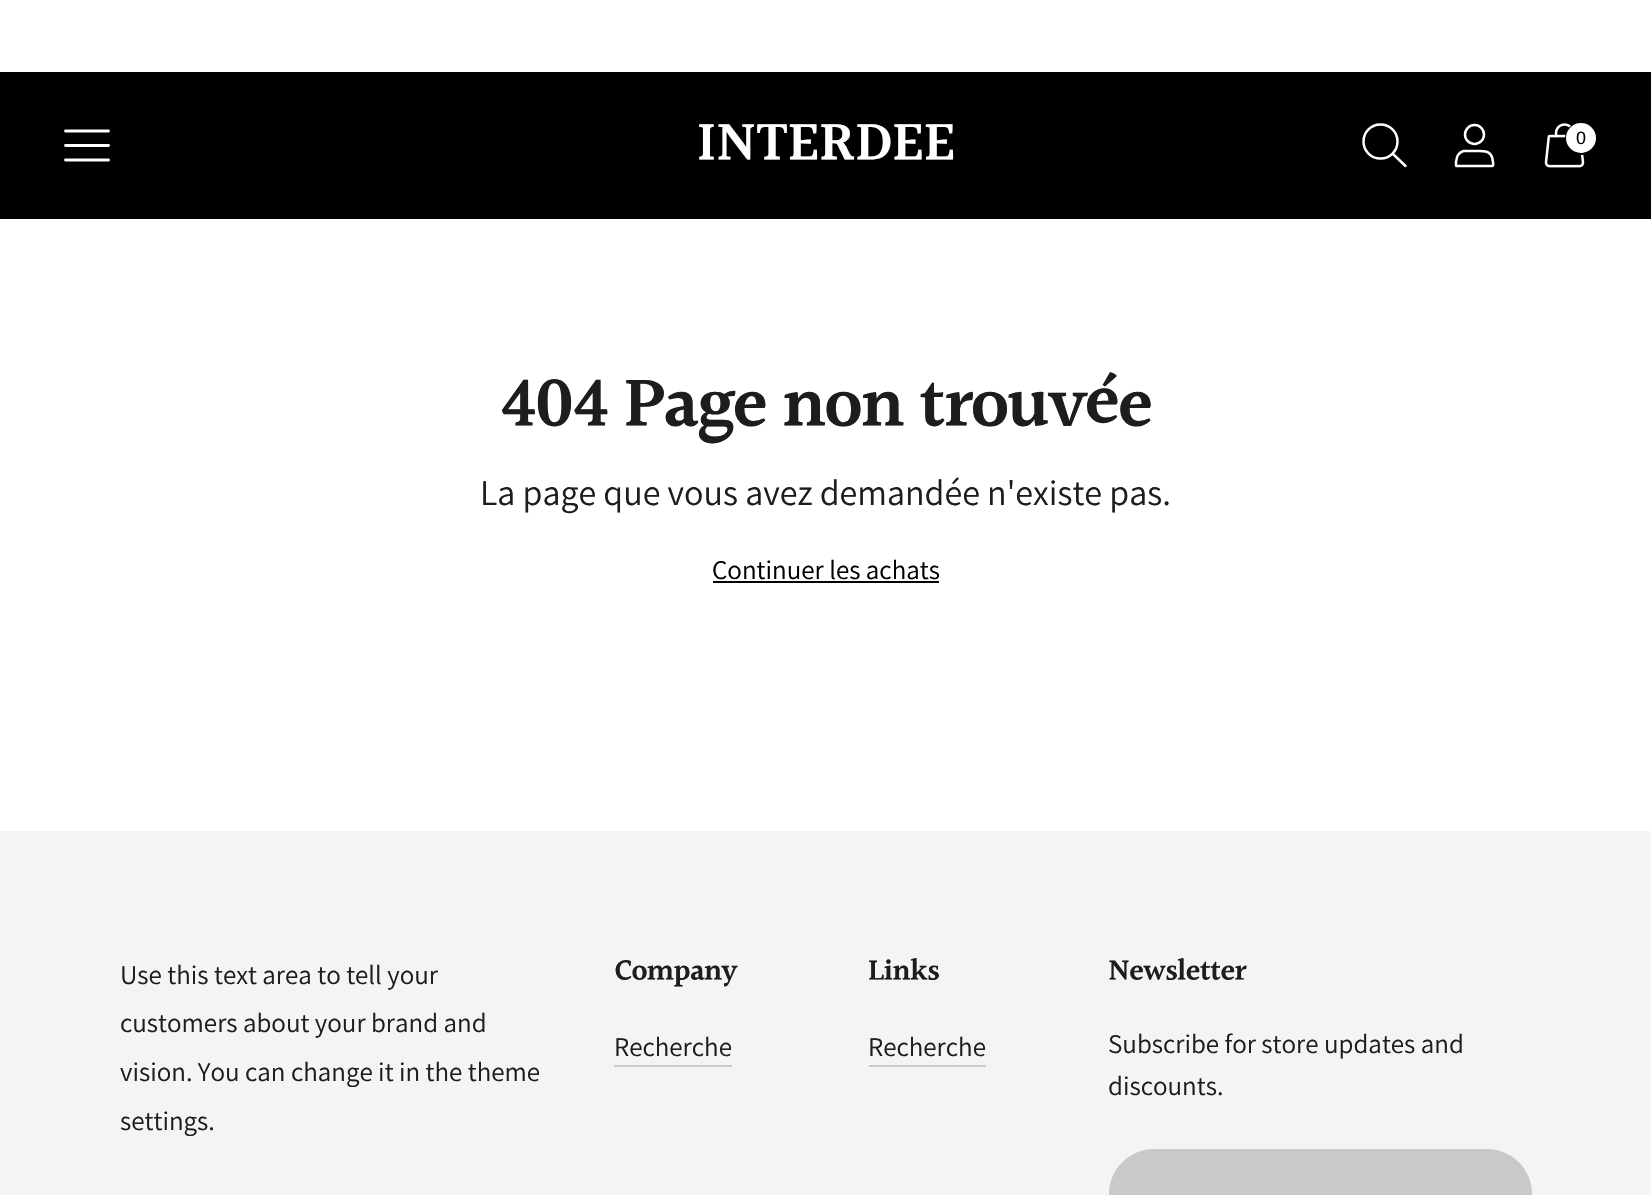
#include "include/core/SkBlurTypes.h"
#include "include/core/SkCanvas.h"
#include "include/core/SkData.h"
#include "include/core/SkFont.h"
#include "include/core/SkFontMgr.h"
#include "include/core/SkImage.h"
#include "include/core/SkMaskFilter.h"
#include "include/core/SkPaint.h"
#include "include/core/SkPathBuilder.h"
#include "include/core/SkTextBlob.h"
#include "include/effects/SkDashPathEffect.h"
#include "include/effects/SkGradientShader.h"
#include "include/utils/SkParsePath.h"

extern sk_sp<SkFontMgr> fontMgr;

void draw(SkCanvas* canvas) {
    SkPaint p;
    p.setAntiAlias(true);
    auto font = [&](const char* family, int weight, float size, bool italic = false) {
        SkFontStyle style(weight, SkFontStyle::kNormal_Width,
            italic ? SkFontStyle::kItalic_Slant : SkFontStyle::kUpright_Slant);
        SkFont result(fontMgr->matchFamilyStyle(family, style), size);
        result.setSubpixel(true);
        return result;
    };
    auto drawTracked = [&](const char* s, float x, float y, const SkFont& font, const SkPaint& ink, float letter, float word) {
        std::vector<SkGlyphID> glyphs(font.countText(s, strlen(s), SkTextEncoding::kUTF8));
        std::vector<float> xs(glyphs.size());
        font.textToGlyphs(s, strlen(s), SkTextEncoding::kUTF8, glyphs);
        font.getXPos(glyphs, xs, x);
        float extra = 0;
        for (size_t i = 0; i < glyphs.size(); i++) {
            xs[i] += extra;
            extra += letter + word * (glyphs[i] == font.unicharToGlyph(' '));
        }
        canvas->drawTextBlob(SkTextBlob::MakeFromPosHGlyphs(glyphs, xs, y, font), 0, 0, ink);
    };
    auto drawPhoto = [&](const char* path, float l, float t, float r, float b) {
        auto image = SkImages::DeferredFromEncodedData(SkData::MakeFromFileName(path));
        canvas->drawImageRect(image, SkRect::MakeLTRB(l, t, r, b), SkSamplingOptions());
    };
    canvas->clear(0xFFFFFFFF);
    p.setColor(0xFF000000);
    canvas->drawRect(SkRect::MakeLTRB(0, 72, 1651, 219), p);
    p.setStyle(SkPaint::kStroke_Style);
    p.setStrokeWidth(2.8f);
    p.setStrokeCap(SkPaint::kRound_Cap);
    p.setStrokeJoin(SkPaint::kRound_Join);
    p.setColor(0xFFFFFFFF);
    canvas->drawPath(SkPathBuilder().moveTo(65.5f, 145.5f).lineTo(108.5f, 145.5f).moveTo(65.5f, 131).lineTo(108.5f, 131).moveTo(65.5f, 160).lineTo(108.5f, 160).detach(), p);
    auto font1 = font("Halant", 600, 55.5f);
    p.setStyle(SkPaint::kFill_Style);
    canvas->drawString("INTERDEE", 697, 162, font1, p);
    p.setStyle(SkPaint::kStroke_Style);
    p.setStrokeWidth(2.5f);
    p.setStrokeCap(SkPaint::kButt_Cap);
    p.setStrokeJoin(SkPaint::kMiter_Join);
    canvas->drawCircle(1380.5f, 141.5f, 17, p);
    p.setStrokeCap(SkPaint::kRound_Cap);
    p.setStrokeJoin(SkPaint::kRound_Join);
    canvas->drawPath(SkPathBuilder().moveTo(1393, 154).lineTo(1405.5f, 166).detach(), p);
    p.setStrokeCap(SkPaint::kButt_Cap);
    p.setStrokeJoin(SkPaint::kMiter_Join);
    canvas->drawCircle(1474.5f, 134.5f, 9.5f, p);
    p.setStrokeCap(SkPaint::kRound_Cap);
    p.setStrokeJoin(SkPaint::kRound_Join);
    canvas->drawPath(SkPathBuilder().moveTo(1492.5f, 166).cubicTo(1494, 166, 1492.5f, 160, 1492.5f, 159).cubicTo(1490.5f, 149.5f, 1482, 151, 1474.5f, 151).lineTo(1463.5f, 151).cubicTo(1458, 152.5f, 1456.5f, 157, 1456, 162).lineTo(1456, 165.5f).lineTo(1456.5f, 166).close().detach(), p);
    drawPhoto("media/1.png", 1544, 123, 1585, 168);
    p.setStrokeWidth(2);
    p.setStrokeCap(SkPaint::kButt_Cap);
    p.setStrokeJoin(SkPaint::kMiter_Join);
    p.setColor(0xFF000000);
    canvas->drawCircle(1581.5f, 138.5f, 15.5f, p);
    p.setStyle(SkPaint::kFill_Style);
    p.setColor(0xFFFFFFFF);
    canvas->drawCircle(1581, 138, 15, p);
    auto font2 = font("Liberation Sans", 400, 18);
    p.setColor(0xFF000000);
    canvas->drawString("0", 1576, 144, font2, p);
    auto font3 = font("Halant", 600, 72);
    p.setColor(0xFF1D1D1D);
    drawTracked("404 Page non trouvée", 500, 429, font3, p, -1.8f, 0);
    auto font4 = font("Assistant", 400, 36);
    canvas->drawString("La page que vous avez demandée n'existe pas.", 480, 505, font4, p);
    auto font5 = font("Assistant", 400, 27);
    p.setColor(0xFF000000);
    canvas->drawString("Continuer les achats", 712, 579, font5, p);
    canvas->drawRect(SkRect::MakeLTRB(713, 581, 939, 583), p);
    p.setColor(0xFFF4F4F4);
    canvas->drawRect(SkRect::MakeLTRB(0, 831, 1651, 1195), p);
    p.setColor(0xFF1D1D1D);
    {
        const struct { const char* s; float x, y; } items[] = {
            {"Use this text area to tell your", 120, 984},
            {"customers about your brand and", 120, 1032},
            {"vision. You can change it in the theme", 120, 1081},
            {"settings.", 120, 1130},
        };
        for (auto [s, x, y] : items) {
            canvas->drawString(s, x, y, font5, p);
        }
    }
    auto font6 = font("Halant", 600, 30);
    drawTracked("Company", 614, 981, font6, p, -0.75f, 0);
    canvas->drawString("Recherche", 614, 1056, font5, p);
    p.setColor(0xFFC9C9C9);
    canvas->drawRect(SkRect::MakeLTRB(614, 1065, 732, 1067), p);
    p.setColor(0xFF1D1D1D);
    drawTracked("Links", 868, 981, font6, p, -0.75f, 0);
    canvas->drawString("Recherche", 868, 1056, font5, p);
    p.setColor(0xFFC9C9C9);
    canvas->drawRect(SkRect::MakeLTRB(869, 1065, 986, 1067), p);
    p.setColor(0xFF1D1D1D);
    drawTracked("Newsletter", 1108, 981, font6, p, -0.75f, 0);
    canvas->drawString("Subscribe for store updates and", 1108, 1053, font5, p);
    canvas->drawString("discounts.", 1108, 1095, font5, p);
    p.setColor(0xFFC9C9C9);
    canvas->drawRoundRect(SkRect::MakeLTRB(1109, 1149, 1532, 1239), 45, 45, p);
}
